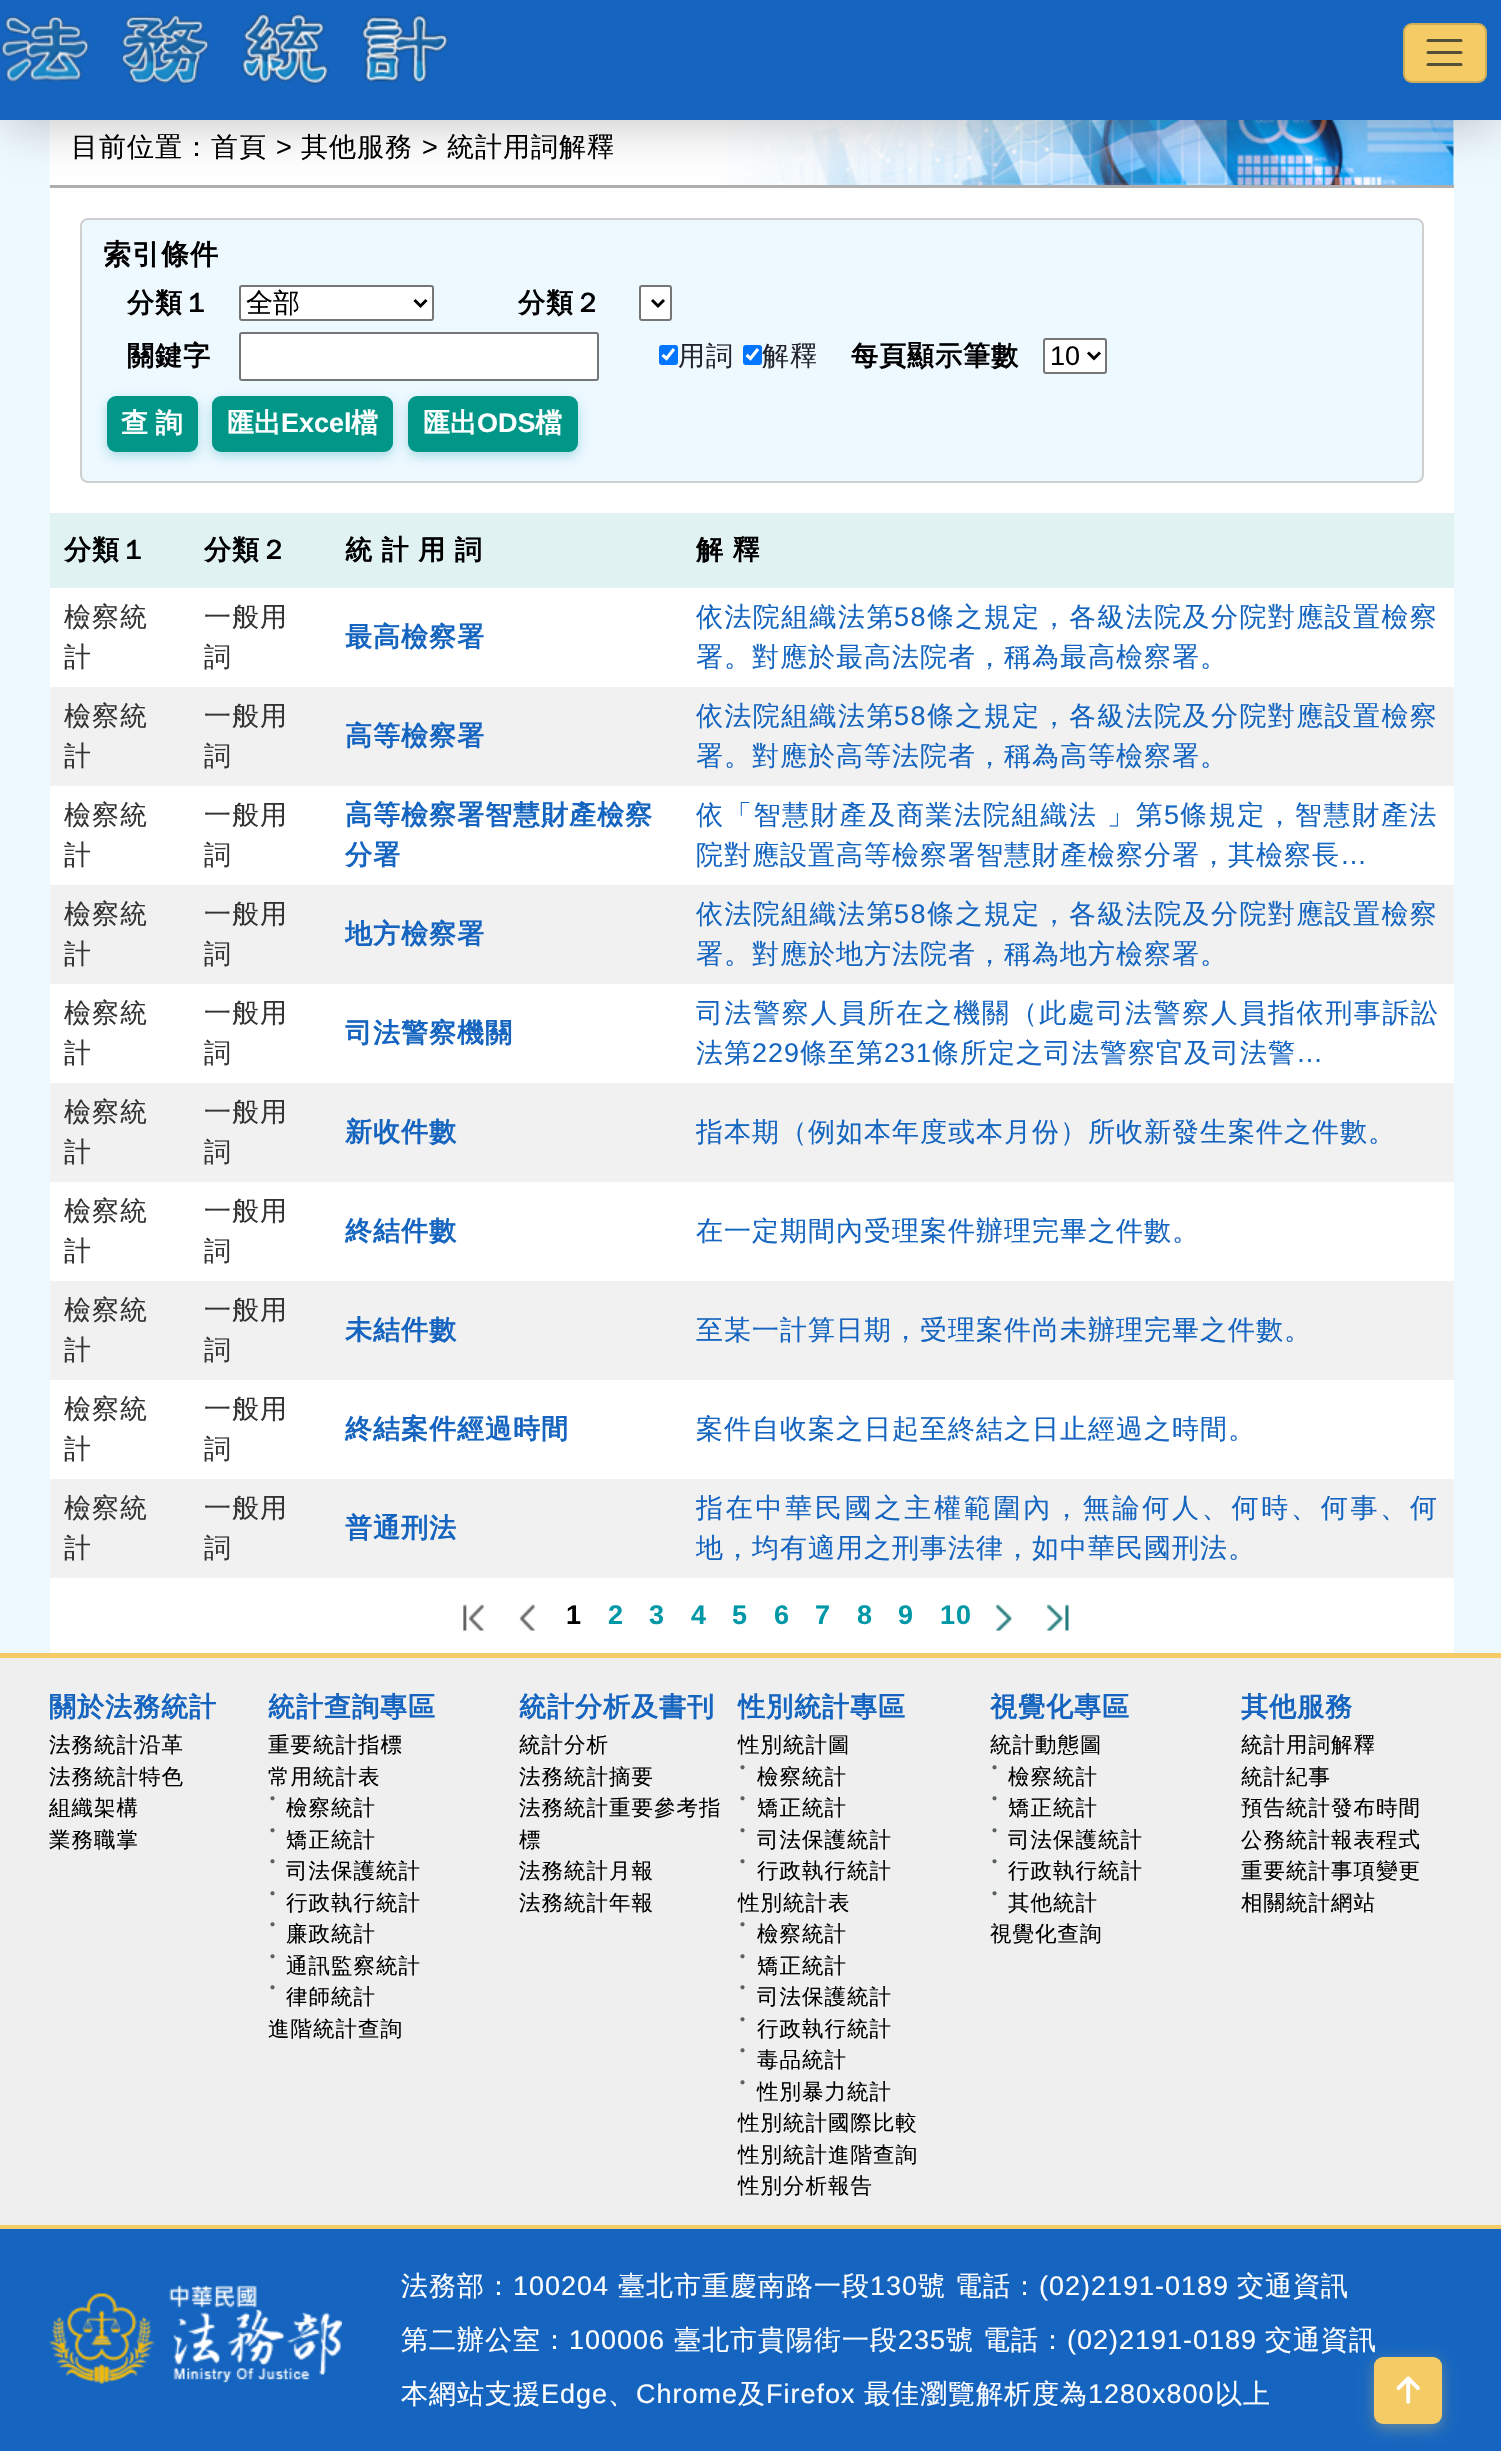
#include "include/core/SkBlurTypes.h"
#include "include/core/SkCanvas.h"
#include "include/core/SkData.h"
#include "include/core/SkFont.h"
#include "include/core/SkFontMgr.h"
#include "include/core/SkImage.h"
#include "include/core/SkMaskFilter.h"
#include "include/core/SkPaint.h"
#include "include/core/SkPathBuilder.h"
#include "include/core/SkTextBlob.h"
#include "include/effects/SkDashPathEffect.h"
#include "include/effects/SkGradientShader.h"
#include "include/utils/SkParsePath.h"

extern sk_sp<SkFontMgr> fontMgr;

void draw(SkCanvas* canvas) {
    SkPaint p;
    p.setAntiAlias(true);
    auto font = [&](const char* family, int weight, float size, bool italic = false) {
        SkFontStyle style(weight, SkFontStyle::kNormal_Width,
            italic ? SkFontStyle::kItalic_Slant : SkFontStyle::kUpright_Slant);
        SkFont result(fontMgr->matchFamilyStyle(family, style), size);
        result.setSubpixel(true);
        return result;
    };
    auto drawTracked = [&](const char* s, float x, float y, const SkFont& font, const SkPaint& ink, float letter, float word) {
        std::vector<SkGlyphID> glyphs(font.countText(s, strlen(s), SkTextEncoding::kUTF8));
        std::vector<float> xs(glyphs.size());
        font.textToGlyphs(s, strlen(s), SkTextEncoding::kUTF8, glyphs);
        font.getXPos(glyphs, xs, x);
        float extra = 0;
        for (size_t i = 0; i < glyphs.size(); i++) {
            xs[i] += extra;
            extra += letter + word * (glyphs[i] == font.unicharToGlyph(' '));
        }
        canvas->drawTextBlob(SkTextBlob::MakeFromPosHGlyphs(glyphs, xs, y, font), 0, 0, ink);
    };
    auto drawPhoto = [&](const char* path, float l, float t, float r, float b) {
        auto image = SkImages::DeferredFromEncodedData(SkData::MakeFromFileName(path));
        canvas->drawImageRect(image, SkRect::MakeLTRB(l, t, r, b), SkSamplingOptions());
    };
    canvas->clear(0xFFFFFFFF);
    p.setColor(0xFFEEF8FF);
    canvas->drawRect(SkRect::MakeLTRB(0, 120, 1501, 1653), p);
    p.setColor(0xFFFFFFFF);
    canvas->drawRect(SkRect::MakeLTRB(1453, 120, 1454, 185), p);
    drawPhoto("media/2.png", 49, 120, 1454, 186);
    p.setColor(0xFFAFAFAF);
    canvas->drawRect(SkRect::MakeLTRB(50, 185, 1454, 188), p);
    p.setColor(0xFFFFFFFF);
    canvas->drawRect(SkRect::MakeLTRB(50, 188, 1454, 513), p);
    p.setColor(0x33000000);
    p.setMaskFilter(SkMaskFilter::MakeBlur(kNormal_SkBlurStyle, 22.5f));
    canvas->drawRect(SkRect::MakeLTRB(8, 23, 1494, 128), p);
    p.setMaskFilter(nullptr);
    p.setColor(0xFF1565C0);
    canvas->drawRect(SkRect::MakeLTRB(0, 0, 1501, 120), p);
    drawPhoto("media/1.png", 0, 12, 449, 86);
    p.setColor(0xFFF4CB65);
    canvas->drawRoundRect(SkRect::MakeLTRB(1403, 23, 1487, 83), 9, 9, p);
    p.setStyle(SkPaint::kStroke_Style);
    p.setStrokeWidth(2);
    p.setColor(0x26000000);
    canvas->drawRoundRect(SkRect::MakeLTRB(1404, 24, 1486, 82), 8, 8, p);
    p.setStrokeWidth(3);
    p.setStrokeCap(SkPaint::kRound_Cap);
    p.setColor(0xFF564F38);
    canvas->drawPath(SkPathBuilder().moveTo(1428, 40.5f).lineTo(1461, 40.5f).moveTo(1428, 52.5f).lineTo(1461, 52.5f).moveTo(1428, 64.5f).lineTo(1461, 64.5f).detach(), p);
    auto font1 = font("WenQuanYi Zen Hei", 500, 27);
    p.setStyle(SkPaint::kFill_Style);
    p.setColor(0xFF000000);
    drawTracked("目前位置：首頁", 71, 156, font1, p, 1, 0);
    auto font2 = font("Liberation Sans", 400, 27);
    drawTracked(">", 276, 156, font2, p, 1, 0);
    drawTracked("其他服務", 301, 156, font1, p, 1, 0);
    drawTracked(">", 422, 156, font2, p, 1, 0);
    drawTracked("統計用詞解釋", 447, 156, font1, p, 1, 0);
    p.setColor(0xFFEEF8FF);
    canvas->drawRoundRect(SkRect::MakeLTRB(81, 219, 1423, 482), 7, 7, p);
    p.setStyle(SkPaint::kStroke_Style);
    p.setStrokeWidth(2);
    p.setStrokeCap(SkPaint::kButt_Cap);
    p.setColor(0xFFCFCFCF);
    canvas->drawRoundRect(SkRect::MakeLTRB(81, 219, 1423, 482), 7, 7, p);
    auto font3 = font("WenQuanYi Zen Hei", 700, 28);
    p.setStyle(SkPaint::kFill_Style);
    p.setColor(0xFF000000);
    drawTracked("索引條件", 103, 264, font3, p, 1, 0);
    auto font4 = font("WenQuanYi Zen Hei", 700, 27);
    drawTracked("分類１", 127, 312, font4, p, 1, 0);
    p.setColor(0xFFFFFFFF);
    canvas->drawRoundRect(SkRect::MakeLTRB(240, 286, 433, 320), 2, 2, p);
    p.setStyle(SkPaint::kStroke_Style);
    p.setColor(0xFF767676);
    canvas->drawRoundRect(SkRect::MakeLTRB(240, 286, 433, 320), 2, 2, p);
    p.setStrokeWidth(3);
    p.setColor(0xFF000000);
    canvas->drawPath(SkPathBuilder().moveTo(414.5f, 300).lineTo(420.5f, 306).lineTo(426.5f, 300).detach(), p);
    p.setStyle(SkPaint::kFill_Style);
    canvas->drawString("全部", 246, 312, font1, p);
    drawTracked("分類２", 518, 312, font4, p, 1, 0);
    p.setColor(0xFFFFFFFF);
    canvas->drawRoundRect(SkRect::MakeLTRB(640, 286, 671, 320), 2, 2, p);
    p.setStyle(SkPaint::kStroke_Style);
    p.setStrokeWidth(2);
    p.setColor(0xFF767676);
    canvas->drawRoundRect(SkRect::MakeLTRB(640, 286, 671, 320), 2, 2, p);
    p.setStrokeWidth(3);
    p.setColor(0xFF000000);
    canvas->drawPath(SkPathBuilder().moveTo(652, 300).lineTo(658, 306).lineTo(664, 300).detach(), p);
    p.setStyle(SkPaint::kFill_Style);
    drawTracked("關鍵字", 127, 365, font4, p, 1, 0);
    p.setColor(0xFFFFFFFF);
    canvas->drawRoundRect(SkRect::MakeLTRB(240, 333, 598, 380), 2, 2, p);
    p.setStyle(SkPaint::kStroke_Style);
    p.setStrokeWidth(2);
    p.setColor(0xFF767676);
    canvas->drawRoundRect(SkRect::MakeLTRB(240, 333, 598, 380), 2, 2, p);
    p.setStyle(SkPaint::kFill_Style);
    p.setColor(0xFF0075FF);
    canvas->drawRoundRect(SkRect::MakeLTRB(659, 345, 678, 365), 3, 3, p);
    p.setStyle(SkPaint::kStroke_Style);
    p.setStrokeWidth(3.1f);
    p.setColor(0xFFFFFFFF);
    canvas->drawPath(SkPathBuilder().moveTo(662.5f, 355).lineTo(666.5f, 358.5f).lineTo(674, 349).detach(), p);
    p.setStyle(SkPaint::kFill_Style);
    p.setColor(0xFF212529);
    drawTracked("用詞", 678, 365, font1, p, 1, 0);
    p.setColor(0xFF0075FF);
    canvas->drawRoundRect(SkRect::MakeLTRB(743, 345, 762, 365), 3, 3, p);
    p.setStyle(SkPaint::kStroke_Style);
    p.setColor(0xFFFFFFFF);
    canvas->drawPath(SkPathBuilder().moveTo(746.5f, 355).lineTo(750.5f, 358.5f).lineTo(758, 349).detach(), p);
    p.setStyle(SkPaint::kFill_Style);
    p.setColor(0xFF212529);
    drawTracked("解釋", 762, 365, font1, p, 1, 0);
    p.setColor(0xFF000000);
    drawTracked("每頁顯示筆數", 851, 365, font4, p, 1, 0);
    p.setColor(0xFFFFFFFF);
    canvas->drawRoundRect(SkRect::MakeLTRB(1044, 339, 1106, 373), 2, 2, p);
    p.setStyle(SkPaint::kStroke_Style);
    p.setStrokeWidth(2);
    p.setColor(0xFF767676);
    canvas->drawRoundRect(SkRect::MakeLTRB(1044, 339, 1106, 373), 2, 2, p);
    p.setStrokeWidth(3);
    p.setColor(0xFF000000);
    canvas->drawPath(SkPathBuilder().moveTo(1088, 352.5f).lineTo(1094, 358.5f).lineTo(1100, 352.5f).detach(), p);
    p.setStyle(SkPaint::kFill_Style);
    canvas->drawString("10", 1050, 365, font2, p);
    p.setColor(0x4D0097A7);
    p.setMaskFilter(SkMaskFilter::MakeBlur(kNormal_SkBlurStyle, 6));
    canvas->drawRoundRect(SkRect::MakeLTRB(107, 401, 198, 456), 9, 9, p);
    p.setMaskFilter(nullptr);
    p.setColor(0xFF009688);
    canvas->drawRoundRect(SkRect::MakeLTRB(107, 396, 198, 452), 9, 9, p);
    p.setColor(0xFFFFFFFF);
    drawTracked("查 詢", 121, 432, font4, p, 0, -0.5f);
    p.setColor(0x4D0097A7);
    p.setMaskFilter(SkMaskFilter::MakeBlur(kNormal_SkBlurStyle, 6));
    canvas->drawRoundRect(SkRect::MakeLTRB(212, 401, 393, 456), 9, 9, p);
    p.setMaskFilter(nullptr);
    p.setColor(0xFF009688);
    canvas->drawRoundRect(SkRect::MakeLTRB(212, 396, 393, 452), 9, 9, p);
    p.setColor(0xFFFFFFFF);
    canvas->drawString("匯出", 227, 432, font4, p);
    auto font5 = font("Liberation Sans", 700, 27);
    canvas->drawString("Excel", 281, 432, font5, p);
    canvas->drawString("檔", 351, 432, font4, p);
    p.setColor(0x4D0097A7);
    p.setMaskFilter(SkMaskFilter::MakeBlur(kNormal_SkBlurStyle, 6));
    canvas->drawRoundRect(SkRect::MakeLTRB(408, 401, 578, 456), 9, 9, p);
    p.setMaskFilter(nullptr);
    p.setColor(0xFF009688);
    canvas->drawRoundRect(SkRect::MakeLTRB(408, 396, 578, 452), 9, 9, p);
    p.setColor(0xFFFFFFFF);
    canvas->drawString("匯出", 423, 432, font4, p);
    canvas->drawString("ODS", 477, 432, font5, p);
    canvas->drawString("檔", 535, 432, font4, p);
    p.setColor(0xFFE0F2F1);
    canvas->drawRect(SkRect::MakeLTRB(50, 513, 1454, 588), p);
    p.setColor(0xFF000000);
    drawTracked("分類１", 64, 559, font4, p, 1, 0);
    drawTracked("分類２", 204, 559, font4, p, 1, 0);
    drawTracked("統 計 用 詞", 345, 559, font4, p, 1, -0.5f);
    drawTracked("解 釋", 696, 559, font4, p, 1, -0.5f);
    p.setColor(0xFFFFFFFF);
    canvas->drawRect(SkRect::MakeLTRB(50, 588, 1454, 687), p);
    p.setColor(0xFF333333);
    {
        const struct { const char* s; float x, y; } items[] = {
            {"檢察統", 64, 626},
            {"計", 64, 666},
            {"一般用", 204, 626},
            {"詞", 204, 666},
        };
        for (auto [s, x, y] : items) {
            drawTracked(s, x, y, font1, p, 1, 0);
        }
    }
    p.setColor(0xFF1565C0);
    drawTracked("最高檢察署", 345, 646, font4, p, 1, 0);
    drawTracked("依法院組織法第", 696, 626, font1, p, 1.4f, 0);
    drawTracked("58", 894, 626, font2, p, 1.4f, 0);
    drawTracked("條之規定，各級法院及分院對應設置檢察", 927, 626, font1, p, 1.4f, 0);
    drawTracked("署。對應於最高法院者，稱為最高檢察署。", 696, 666, font1, p, 1, 0);
    p.setColor(0xFFF1F1F1);
    canvas->drawRect(SkRect::MakeLTRB(50, 687, 1454, 786), p);
    p.setColor(0xFF333333);
    {
        const struct { const char* s; float x, y; } items[] = {
            {"檢察統", 64, 725},
            {"計", 64, 765},
            {"一般用", 204, 725},
            {"詞", 204, 765},
        };
        for (auto [s, x, y] : items) {
            drawTracked(s, x, y, font1, p, 1, 0);
        }
    }
    p.setColor(0xFF1565C0);
    drawTracked("高等檢察署", 345, 745, font4, p, 1, 0);
    drawTracked("依法院組織法第", 696, 725, font1, p, 1.4f, 0);
    drawTracked("58", 894, 725, font2, p, 1.4f, 0);
    drawTracked("條之規定，各級法院及分院對應設置檢察", 927, 725, font1, p, 1.4f, 0);
    drawTracked("署。對應於高等法院者，稱為高等檢察署。", 696, 765, font1, p, 1, 0);
    p.setColor(0xFFFFFFFF);
    canvas->drawRect(SkRect::MakeLTRB(50, 786, 1454, 885), p);
    p.setColor(0xFF333333);
    {
        const struct { const char* s; float x, y; } items[] = {
            {"檢察統", 64, 824},
            {"計", 64, 864},
            {"一般用", 204, 824},
            {"詞", 204, 864},
        };
        for (auto [s, x, y] : items) {
            drawTracked(s, x, y, font1, p, 1, 0);
        }
    }
    p.setColor(0xFF1565C0);
    drawTracked("高等檢察署智慧財產檢察", 345, 824, font4, p, 1, 0);
    drawTracked("分署", 345, 864, font4, p, 1, 0);
    drawTracked("依「智慧財產及商業法院組織法 」第", 696, 824, font1, p, 1.7f, -0.5f);
    drawTracked("5", 1164, 824, font2, p, 1.7f, 0);
    drawTracked("條規定，智慧財產法", 1180, 824, font1, p, 1.7f, 0);
    drawTracked("院對應設置高等檢察署智慧財產檢察分署，其檢察長", 696, 864, font1, p, 1, 0);
    drawTracked("…", 1340, 864, font2, p, 1, 0);
    p.setColor(0xFFF1F1F1);
    canvas->drawRect(SkRect::MakeLTRB(50, 885, 1454, 984), p);
    p.setColor(0xFF333333);
    {
        const struct { const char* s; float x, y; } items[] = {
            {"檢察統", 64, 923},
            {"計", 64, 963},
            {"一般用", 204, 923},
            {"詞", 204, 963},
        };
        for (auto [s, x, y] : items) {
            drawTracked(s, x, y, font1, p, 1, 0);
        }
    }
    p.setColor(0xFF1565C0);
    drawTracked("地方檢察署", 345, 943, font4, p, 1, 0);
    drawTracked("依法院組織法第", 696, 923, font1, p, 1.4f, 0);
    drawTracked("58", 894, 923, font2, p, 1.4f, 0);
    drawTracked("條之規定，各級法院及分院對應設置檢察", 927, 923, font1, p, 1.4f, 0);
    drawTracked("署。對應於地方法院者，稱為地方檢察署。", 696, 963, font1, p, 1, 0);
    p.setColor(0xFFFFFFFF);
    canvas->drawRect(SkRect::MakeLTRB(50, 984, 1454, 1083), p);
    p.setColor(0xFF333333);
    {
        const struct { const char* s; float x, y; } items[] = {
            {"檢察統", 64, 1022},
            {"計", 64, 1062},
            {"一般用", 204, 1022},
            {"詞", 204, 1062},
        };
        for (auto [s, x, y] : items) {
            drawTracked(s, x, y, font1, p, 1, 0);
        }
    }
    p.setColor(0xFF1565C0);
    drawTracked("司法警察機關", 345, 1042, font4, p, 1, 0);
    drawTracked("司法警察人員所在之機關（此處司法警察人員指依刑事訴訟", 696, 1022, font1, p, 1.6f, 0);
    drawTracked("法第", 696, 1062, font1, p, 1, 0);
    drawTracked("229", 752, 1062, font2, p, 1, 0);
    drawTracked("條至第", 800, 1062, font1, p, 1, 0);
    drawTracked("231", 884, 1062, font2, p, 1, 0);
    drawTracked("條所定之司法警察官及司法警", 932, 1062, font1, p, 1, 0);
    drawTracked("…", 1296, 1062, font2, p, 1, 0);
    p.setColor(0xFFF1F1F1);
    canvas->drawRect(SkRect::MakeLTRB(50, 1083, 1454, 1182), p);
    p.setColor(0xFF333333);
    {
        const struct { const char* s; float x, y; } items[] = {
            {"檢察統", 64, 1121},
            {"計", 64, 1161},
            {"一般用", 204, 1121},
            {"詞", 204, 1161},
        };
        for (auto [s, x, y] : items) {
            drawTracked(s, x, y, font1, p, 1, 0);
        }
    }
    p.setColor(0xFF1565C0);
    drawTracked("新收件數", 345, 1141, font4, p, 1, 0);
    drawTracked("指本期（例如本年度或本月份）所收新發生案件之件數。", 696, 1141, font1, p, 1, 0);
    p.setColor(0xFFFFFFFF);
    canvas->drawRect(SkRect::MakeLTRB(50, 1182, 1454, 1281), p);
    p.setColor(0xFF333333);
    {
        const struct { const char* s; float x, y; } items[] = {
            {"檢察統", 64, 1220},
            {"計", 64, 1260},
            {"一般用", 204, 1220},
            {"詞", 204, 1260},
        };
        for (auto [s, x, y] : items) {
            drawTracked(s, x, y, font1, p, 1, 0);
        }
    }
    p.setColor(0xFF1565C0);
    drawTracked("終結件數", 345, 1240, font4, p, 1, 0);
    drawTracked("在一定期間內受理案件辦理完畢之件數。", 696, 1240, font1, p, 1, 0);
    p.setColor(0xFFF1F1F1);
    canvas->drawRect(SkRect::MakeLTRB(50, 1281, 1454, 1380), p);
    p.setColor(0xFF333333);
    {
        const struct { const char* s; float x, y; } items[] = {
            {"檢察統", 64, 1319},
            {"計", 64, 1359},
            {"一般用", 204, 1319},
            {"詞", 204, 1359},
        };
        for (auto [s, x, y] : items) {
            drawTracked(s, x, y, font1, p, 1, 0);
        }
    }
    p.setColor(0xFF1565C0);
    drawTracked("未結件數", 345, 1339, font4, p, 1, 0);
    drawTracked("至某一計算日期，受理案件尚未辦理完畢之件數。", 696, 1339, font1, p, 1, 0);
    p.setColor(0xFFFFFFFF);
    canvas->drawRect(SkRect::MakeLTRB(50, 1380, 1454, 1479), p);
    p.setColor(0xFF333333);
    {
        const struct { const char* s; float x, y; } items[] = {
            {"檢察統", 64, 1418},
            {"計", 64, 1458},
            {"一般用", 204, 1418},
            {"詞", 204, 1458},
        };
        for (auto [s, x, y] : items) {
            drawTracked(s, x, y, font1, p, 1, 0);
        }
    }
    p.setColor(0xFF1565C0);
    drawTracked("終結案件經過時間", 345, 1438, font4, p, 1, 0);
    drawTracked("案件自收案之日起至終結之日止經過之時間。", 696, 1438, font1, p, 1, 0);
    p.setColor(0xFFF1F1F1);
    canvas->drawRect(SkRect::MakeLTRB(50, 1479, 1454, 1578), p);
    p.setColor(0xFF333333);
    {
        const struct { const char* s; float x, y; } items[] = {
            {"檢察統", 64, 1517},
            {"計", 64, 1557},
            {"一般用", 204, 1517},
            {"詞", 204, 1557},
        };
        for (auto [s, x, y] : items) {
            drawTracked(s, x, y, font1, p, 1, 0);
        }
    }
    p.setColor(0xFF1565C0);
    drawTracked("普通刑法", 345, 1537, font4, p, 1, 0);
    drawTracked("指在中華民國之主權範圍內，無論何人、何時、何事、何", 696, 1517, font1, p, 2.75f, 0);
    drawTracked("地，均有適用之刑事法律，如中華民國刑法。", 696, 1557, font1, p, 1, 0);
    p.setColor(0xFFFFFFFF);
    canvas->drawRect(SkRect::MakeLTRB(50, 1578, 1454, 1653), p);
    drawPhoto("media/3.png", 463, 1604, 484, 1631);
    drawPhoto("media/4.png", 519, 1604, 535, 1631);
    p.setColor(0xFF000000);
    drawTracked("1", 566, 1624, font5, p, 1, 0);
    p.setColor(0xFF0097A7);
    {
        const struct { const char* s; float x, y; } items[] = {
            {"2", 608, 1624},
            {"3", 649, 1624},
            {"4", 691, 1624},
            {"5", 732, 1624},
            {"6", 774, 1624},
            {"7", 815, 1624},
            {"8", 857, 1624},
            {"9", 898, 1624},
            {"10", 940, 1624},
        };
        for (auto [s, x, y] : items) {
            drawTracked(s, x, y, font5, p, 1, 0);
        }
    }
    drawPhoto("media/5.png", 995, 1604, 1012, 1631);
    drawPhoto("media/6.png", 1046, 1604, 1069, 1631);
    {
        const struct { float l, t, r, b; SkColor color; } items[] = {
            {0, 1658, 1501, 2225, 0xFFF0EFF0},
            {0, 1653, 1501, 1658, 0xFFF4CB65},
            {0, 2225, 1501, 2229, 0xFFF4CB65},
        };
        for (auto [l, t, r, b, color] : items) {
            p.setColor(color);
            canvas->drawRect(SkRect::MakeLTRB(l, t, r, b), p);
        }
    }
    p.setColor(0xFF1565C0);
    drawTracked("關於法務統計", 49, 1716, font4, p, 1, 0);
    auto font6 = font("WenQuanYi Zen Hei", 500, 21.5f);
    p.setColor(0xFF000000);
    {
        const struct { const char* s; float x, y; } items[] = {
            {"法務統計沿革", 49, 1752},
            {"法務統計特色", 49, 1784},
            {"組織架構", 49, 1815},
            {"業務職掌", 49, 1847},
        };
        for (auto [s, x, y] : items) {
            drawTracked(s, x, y, font6, p, 1, 0);
        }
    }
    p.setColor(0xFF1565C0);
    drawTracked("統計查詢專區", 268, 1716, font4, p, 1, 0);
    p.setColor(0xFF000000);
    drawTracked("重要統計指標", 268, 1752, font6, p, 1, 0);
    drawTracked("常用統計表", 268, 1784, font6, p, 1, 0);
    auto font7 = font("Liberation Serif", 700, 27);
    p.setColor(0xFF59615E);
    drawTracked("˙", 268, 1815, font7, p, 1, 0);
    p.setColor(0xFF000000);
    drawTracked("檢察統計", 286, 1815, font6, p, 1, 0);
    p.setColor(0xFF59615E);
    drawTracked("˙", 268, 1847, font7, p, 1, 0);
    p.setColor(0xFF000000);
    drawTracked("矯正統計", 286, 1847, font6, p, 1, 0);
    p.setColor(0xFF59615E);
    drawTracked("˙", 268, 1878, font7, p, 1, 0);
    p.setColor(0xFF000000);
    drawTracked("司法保護統計", 286, 1878, font6, p, 1, 0);
    p.setColor(0xFF59615E);
    drawTracked("˙", 268, 1910, font7, p, 1, 0);
    p.setColor(0xFF000000);
    drawTracked("行政執行統計", 286, 1910, font6, p, 1, 0);
    p.setColor(0xFF59615E);
    drawTracked("˙", 268, 1941, font7, p, 1, 0);
    p.setColor(0xFF000000);
    drawTracked("廉政統計", 286, 1941, font6, p, 1, 0);
    p.setColor(0xFF59615E);
    drawTracked("˙", 268, 1973, font7, p, 1, 0);
    p.setColor(0xFF000000);
    drawTracked("通訊監察統計", 286, 1973, font6, p, 1, 0);
    p.setColor(0xFF59615E);
    drawTracked("˙", 268, 2004, font7, p, 1, 0);
    p.setColor(0xFF000000);
    drawTracked("律師統計", 286, 2004, font6, p, 1, 0);
    drawTracked("進階統計查詢", 268, 2036, font6, p, 1, 0);
    p.setColor(0xFF1565C0);
    drawTracked("統計分析及書刊", 519, 1716, font4, p, 1, 0);
    p.setColor(0xFF000000);
    {
        const struct { const char* s; float x, y; } items[] = {
            {"統計分析", 519, 1752},
            {"法務統計摘要", 519, 1784},
            {"法務統計重要參考指", 519, 1815},
            {"標", 519, 1847},
            {"法務統計月報", 519, 1878},
            {"法務統計年報", 519, 1910},
        };
        for (auto [s, x, y] : items) {
            drawTracked(s, x, y, font6, p, 1, 0);
        }
    }
    p.setColor(0xFF1565C0);
    drawTracked("性別統計專區", 738, 1716, font4, p, 1, 0);
    p.setColor(0xFF000000);
    drawTracked("性別統計圖", 738, 1752, font6, p, 1, 0);
    p.setColor(0xFF59615E);
    drawTracked("˙", 738, 1784, font7, p, 1, 0);
    p.setColor(0xFF000000);
    drawTracked("檢察統計", 757, 1784, font6, p, 1, 0);
    p.setColor(0xFF59615E);
    drawTracked("˙", 738, 1815, font7, p, 1, 0);
    p.setColor(0xFF000000);
    drawTracked("矯正統計", 757, 1815, font6, p, 1, 0);
    p.setColor(0xFF59615E);
    drawTracked("˙", 738, 1847, font7, p, 1, 0);
    p.setColor(0xFF000000);
    drawTracked("司法保護統計", 757, 1847, font6, p, 1, 0);
    p.setColor(0xFF59615E);
    drawTracked("˙", 738, 1878, font7, p, 1, 0);
    p.setColor(0xFF000000);
    drawTracked("行政執行統計", 757, 1878, font6, p, 1, 0);
    drawTracked("性別統計表", 738, 1910, font6, p, 1, 0);
    p.setColor(0xFF59615E);
    drawTracked("˙", 738, 1941, font7, p, 1, 0);
    p.setColor(0xFF000000);
    drawTracked("檢察統計", 757, 1941, font6, p, 1, 0);
    p.setColor(0xFF59615E);
    drawTracked("˙", 738, 1973, font7, p, 1, 0);
    p.setColor(0xFF000000);
    drawTracked("矯正統計", 757, 1973, font6, p, 1, 0);
    p.setColor(0xFF59615E);
    drawTracked("˙", 738, 2004, font7, p, 1, 0);
    p.setColor(0xFF000000);
    drawTracked("司法保護統計", 757, 2004, font6, p, 1, 0);
    p.setColor(0xFF59615E);
    drawTracked("˙", 738, 2036, font7, p, 1, 0);
    p.setColor(0xFF000000);
    drawTracked("行政執行統計", 757, 2036, font6, p, 1, 0);
    p.setColor(0xFF59615E);
    drawTracked("˙", 738, 2067, font7, p, 1, 0);
    p.setColor(0xFF000000);
    drawTracked("毒品統計", 757, 2067, font6, p, 1, 0);
    p.setColor(0xFF59615E);
    drawTracked("˙", 738, 2099, font7, p, 1, 0);
    p.setColor(0xFF000000);
    {
        const struct { const char* s; float x, y; } items[] = {
            {"性別暴力統計", 757, 2099},
            {"性別統計國際比較", 738, 2130},
            {"性別統計進階查詢", 738, 2162},
            {"性別分析報告", 738, 2193},
        };
        for (auto [s, x, y] : items) {
            drawTracked(s, x, y, font6, p, 1, 0);
        }
    }
    p.setColor(0xFF1565C0);
    drawTracked("視覺化專區", 990, 1716, font4, p, 1, 0);
    p.setColor(0xFF000000);
    drawTracked("統計動態圖", 990, 1752, font6, p, 1, 0);
    p.setColor(0xFF59615E);
    drawTracked("˙", 990, 1784, font7, p, 1, 0);
    p.setColor(0xFF000000);
    drawTracked("檢察統計", 1008, 1784, font6, p, 1, 0);
    p.setColor(0xFF59615E);
    drawTracked("˙", 990, 1815, font7, p, 1, 0);
    p.setColor(0xFF000000);
    drawTracked("矯正統計", 1008, 1815, font6, p, 1, 0);
    p.setColor(0xFF59615E);
    drawTracked("˙", 990, 1847, font7, p, 1, 0);
    p.setColor(0xFF000000);
    drawTracked("司法保護統計", 1008, 1847, font6, p, 1, 0);
    p.setColor(0xFF59615E);
    drawTracked("˙", 990, 1878, font7, p, 1, 0);
    p.setColor(0xFF000000);
    drawTracked("行政執行統計", 1008, 1878, font6, p, 1, 0);
    p.setColor(0xFF59615E);
    drawTracked("˙", 990, 1910, font7, p, 1, 0);
    p.setColor(0xFF000000);
    drawTracked("其他統計", 1008, 1910, font6, p, 1, 0);
    drawTracked("視覺化查詢", 990, 1941, font6, p, 1, 0);
    p.setColor(0xFF1565C0);
    drawTracked("其他服務", 1241, 1716, font4, p, 1, 0);
    p.setColor(0xFF000000);
    {
        const struct { const char* s; float x, y; } items[] = {
            {"統計用詞解釋", 1241, 1752},
            {"統計紀事", 1241, 1784},
            {"預告統計發布時間", 1241, 1815},
            {"公務統計報表程式", 1241, 1847},
            {"重要統計事項變更", 1241, 1878},
            {"相關統計網站", 1241, 1910},
        };
        for (auto [s, x, y] : items) {
            drawTracked(s, x, y, font6, p, 1, 0);
        }
    }
    p.setColor(0xFF1565C0);
    canvas->drawRect(SkRect::MakeLTRB(0, 2229, 1501, 2451), p);
    drawPhoto("media/7.png", 49, 2285, 342, 2384);
    p.setColor(0xFFFFFFFF);
    drawTracked("法務部：", 401, 2295, font1, p, 1, 0);
    drawTracked("100204", 513, 2295, font2, p, 1, 0);
    drawTracked("臺北市重慶南路一段", 618, 2295, font1, p, 1, 0);
    drawTracked("130", 870, 2295, font2, p, 1, 0);
    drawTracked("號 電話：", 918, 2295, font1, p, 1, 0);
    drawTracked("(02)2191-0189", 1039, 2295, font2, p, 1, 0);
    drawTracked("交通資訊", 1237, 2295, font1, p, 1, 0);
    drawTracked("第二辦公室：", 401, 2349, font1, p, 1, 0);
    drawTracked("100006", 569, 2349, font2, p, 1, 0);
    drawTracked("臺北市貴陽街一段", 674, 2349, font1, p, 1, 0);
    drawTracked("235", 898, 2349, font2, p, 1, 0);
    drawTracked("號 電話：", 946, 2349, font1, p, 1, 0);
    drawTracked("(02)2191-0189", 1067, 2349, font2, p, 1, 0);
    drawTracked("交通資訊", 1265, 2349, font1, p, 1, 0);
    drawTracked("本網站支援", 401, 2403, font1, p, 1, 0);
    drawTracked("Edge", 541, 2403, font2, p, 1, 0);
    drawTracked("、", 608, 2403, font1, p, 1, 0);
    drawTracked("Chrome", 636, 2403, font2, p, 1, 0);
    drawTracked("及", 738, 2403, font1, p, 1, 0);
    drawTracked("Firefox", 766, 2403, font2, p, 1, 0);
    drawTracked("最佳瀏覽解析度為", 864, 2403, font1, p, 1, 0);
    drawTracked("1280x800", 1088, 2403, font2, p, 1, 0);
    drawTracked("以上", 1215, 2403, font1, p, 1, 0);
    p.setColor(0x59F4CB65);
    p.setMaskFilter(SkMaskFilter::MakeBlur(kNormal_SkBlurStyle, 7.5f));
    canvas->drawRoundRect(SkRect::MakeLTRB(1374, 2361, 1442, 2429), 9, 9, p);
    p.setMaskFilter(nullptr);
    p.setColor(0xFFF4CB65);
    canvas->drawRoundRect(SkRect::MakeLTRB(1374, 2357, 1442, 2424), 9, 9, p);
    drawPhoto("media/8.png", 1396, 2376, 1420, 2404);
}
